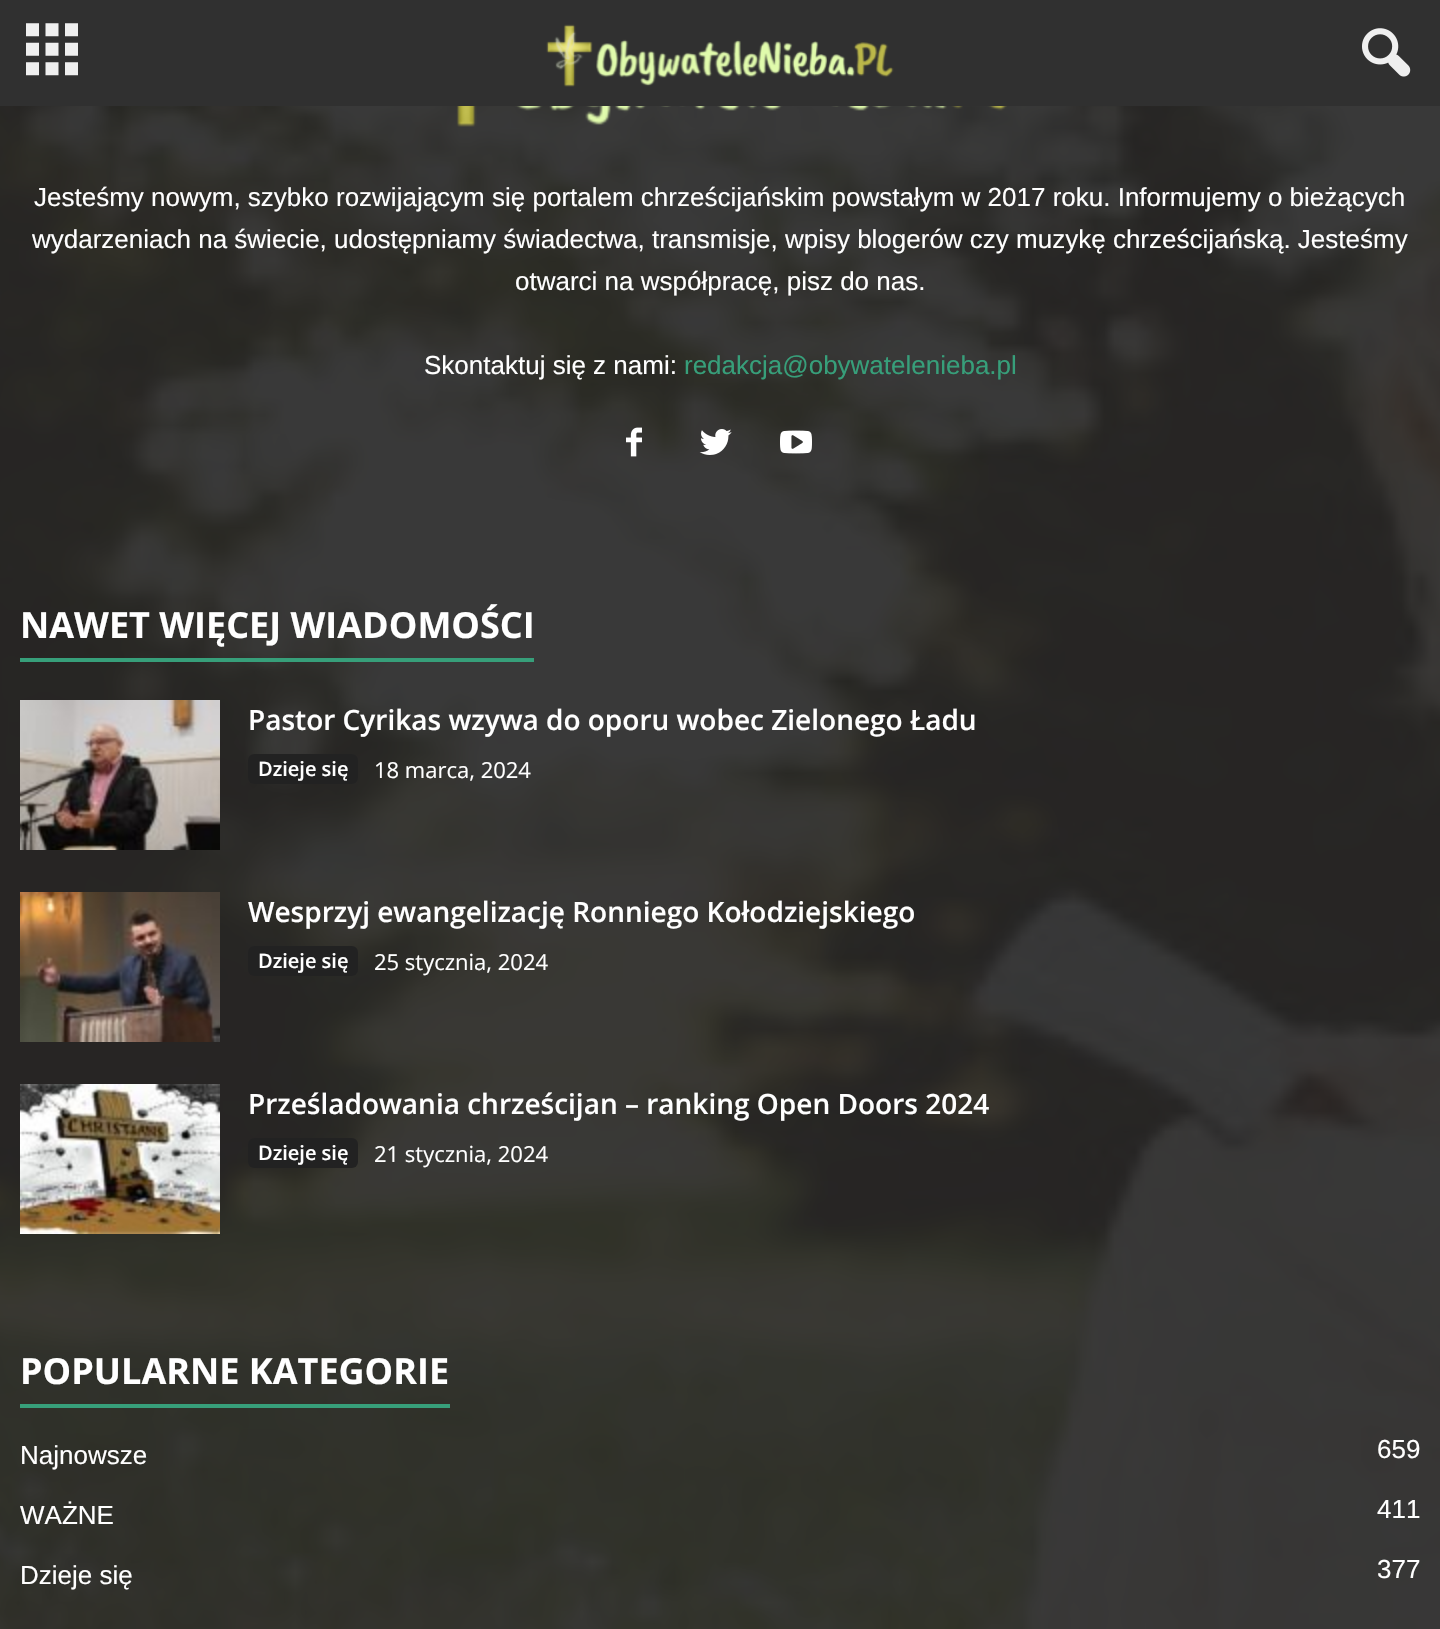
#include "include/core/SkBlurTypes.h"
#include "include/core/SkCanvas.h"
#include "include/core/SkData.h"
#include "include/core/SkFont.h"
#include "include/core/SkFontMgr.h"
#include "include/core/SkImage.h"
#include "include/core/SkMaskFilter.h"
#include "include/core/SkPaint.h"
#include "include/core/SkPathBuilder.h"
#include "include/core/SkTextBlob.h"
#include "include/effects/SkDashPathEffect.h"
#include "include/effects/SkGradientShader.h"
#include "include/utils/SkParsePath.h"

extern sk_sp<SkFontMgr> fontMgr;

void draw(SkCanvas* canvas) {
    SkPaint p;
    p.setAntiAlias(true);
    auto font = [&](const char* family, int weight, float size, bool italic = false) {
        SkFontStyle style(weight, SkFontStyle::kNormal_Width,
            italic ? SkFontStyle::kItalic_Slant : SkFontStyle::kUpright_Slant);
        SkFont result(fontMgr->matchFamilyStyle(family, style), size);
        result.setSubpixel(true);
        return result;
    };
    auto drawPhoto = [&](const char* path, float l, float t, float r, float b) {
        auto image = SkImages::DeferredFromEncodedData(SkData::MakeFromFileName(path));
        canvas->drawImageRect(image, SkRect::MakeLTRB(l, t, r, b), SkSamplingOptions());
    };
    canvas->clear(0xFF222222);
    p.setColor(0xFF303030);
    canvas->drawRect(SkRect::MakeLTRB(0, 0, 1440, 106), p);
    drawPhoto("media/1.png", 26, 23, 78, 76);
    drawPhoto("media/2.png", 546, 24, 894, 87);
    drawPhoto("media/3.png", 1362, 28, 1411, 77);
    drawPhoto("media/4.png", 0, 106, 1440, 1629);
    drawPhoto("media/5.png", 456, 106, 1007, 127);
    auto font1 = font("Liberation Sans", 400, 26);
    p.setColor(0xFFFFFFFF);
    {
        const struct { const char* s; float x, y; } items[] = {
            {"Jesteśmy nowym, szybko rozwijającym się portalem chrześcijańskim powstałym w 2017 roku. Informujemy o bieżących", 34, 206},
            {"wydarzeniach na świecie, udostępniamy świadectwa, transmisje, wpisy blogerów czy muzykę chrześcijańską. Jesteśmy", 32, 248},
            {"otwarci na współpracę, pisz do nas.", 515, 290},
            {"Skontaktuj się z nami:", 424, 374},
        };
        for (auto [s, x, y] : items) {
            canvas->drawString(s, x, y, font1, p);
        }
    }
    p.setColor(0xFF379F7A);
    canvas->drawString("redakcja@obywatelenieba.pl", 684, 374, font1, p);
    drawPhoto("media/6.png", 626, 427, 642, 457);
    drawPhoto("media/7.png", 699, 429, 732, 455);
    drawPhoto("media/8.png", 780, 430, 812, 454);
    auto font2 = font("Open Sans", 700, 36);
    p.setColor(0xFFFFFFFF);
    canvas->drawString("NAWET WIĘCEJ WIADOMOŚCI", 20, 638, font2, p);
    p.setColor(0xFF379F7A);
    canvas->drawRect(SkRect::MakeLTRB(20, 658, 534, 662), p);
    drawPhoto("media/9.png", 20, 700, 220, 850);
    auto font3 = font("Open Sans", 600, 28);
    p.setColor(0xFFFFFFFF);
    canvas->drawString("Pastor Cyrikas wzywa do oporu wobec Zielonego Ładu", 248, 730, font3, p);
    p.setColor(0xFF222222);
    canvas->drawRoundRect(SkRect::MakeLTRB(248, 754, 358, 784), 6, 6, p);
    auto font4 = font("Open Sans", 600, 20);
    p.setColor(0xFFFFFFFF);
    canvas->drawString("Dzieje się", 258, 776, font4, p);
    auto font5 = font("Open Sans", 400, 22);
    canvas->drawString("18 marca, 2024", 374, 778, font5, p);
    drawPhoto("media/10.png", 20, 892, 220, 1042);
    canvas->drawString("Wesprzyj ewangelizację Ronniego Kołodziejskiego", 248, 922, font3, p);
    p.setColor(0xFF222222);
    canvas->drawRoundRect(SkRect::MakeLTRB(248, 946, 358, 976), 6, 6, p);
    p.setColor(0xFFFFFFFF);
    canvas->drawString("Dzieje się", 258, 968, font4, p);
    canvas->drawString("25 stycznia, 2024", 374, 970, font5, p);
    drawPhoto("media/11.png", 20, 1084, 220, 1234);
    canvas->drawString("Prześladowania chrześcijan – ranking Open Doors 2024", 248, 1114, font3, p);
    p.setColor(0xFF222222);
    canvas->drawRoundRect(SkRect::MakeLTRB(248, 1138, 358, 1168), 6, 6, p);
    p.setColor(0xFFFFFFFF);
    canvas->drawString("Dzieje się", 258, 1160, font4, p);
    canvas->drawString("21 stycznia, 2024", 374, 1162, font5, p);
    canvas->drawString("POPULARNE KATEGORIE", 20, 1384, font2, p);
    p.setColor(0xFF379F7A);
    canvas->drawRect(SkRect::MakeLTRB(20, 1404, 450, 1408), p);
    p.setColor(0xFFFFFFFF);
    {
        const struct { const char* s; float x, y; } items[] = {
            {"Najnowsze", 20, 1464},
            {"659", 1377, 1458},
            {"WAŻNE", 20, 1524},
            {"411", 1377, 1518},
            {"Dzieje się", 20, 1584},
            {"377", 1377, 1578},
        };
        for (auto [s, x, y] : items) {
            canvas->drawString(s, x, y, font1, p);
        }
    }
}
